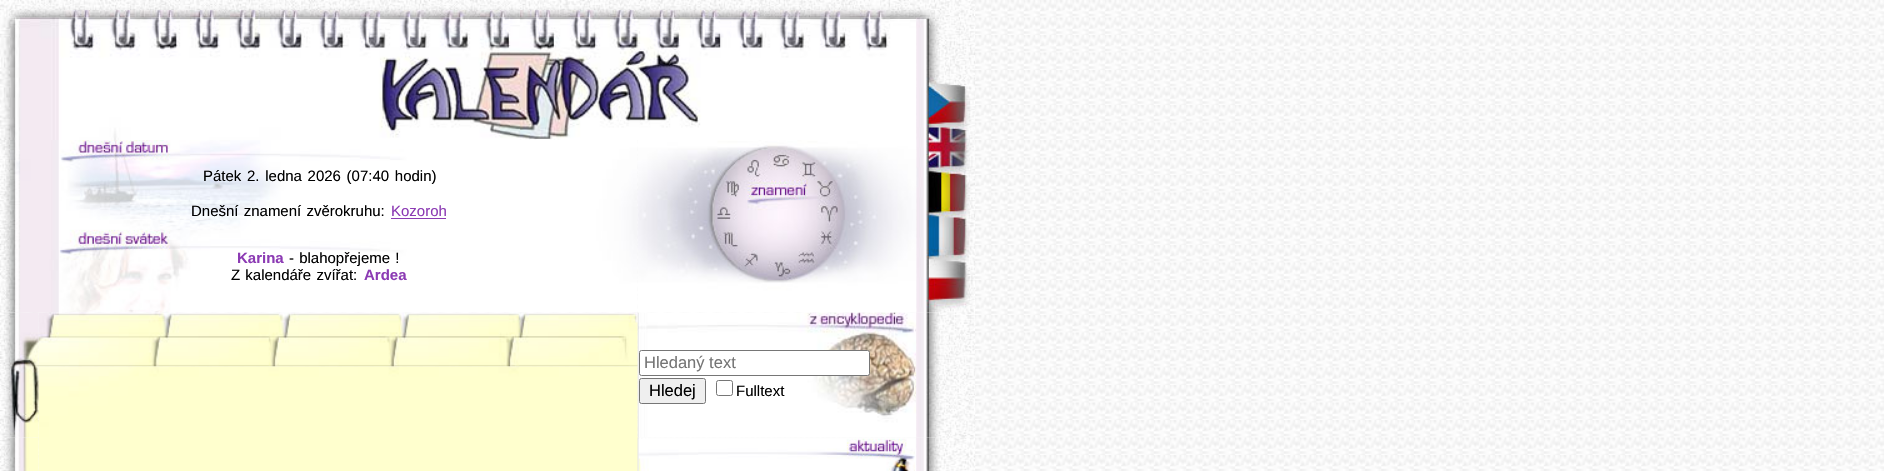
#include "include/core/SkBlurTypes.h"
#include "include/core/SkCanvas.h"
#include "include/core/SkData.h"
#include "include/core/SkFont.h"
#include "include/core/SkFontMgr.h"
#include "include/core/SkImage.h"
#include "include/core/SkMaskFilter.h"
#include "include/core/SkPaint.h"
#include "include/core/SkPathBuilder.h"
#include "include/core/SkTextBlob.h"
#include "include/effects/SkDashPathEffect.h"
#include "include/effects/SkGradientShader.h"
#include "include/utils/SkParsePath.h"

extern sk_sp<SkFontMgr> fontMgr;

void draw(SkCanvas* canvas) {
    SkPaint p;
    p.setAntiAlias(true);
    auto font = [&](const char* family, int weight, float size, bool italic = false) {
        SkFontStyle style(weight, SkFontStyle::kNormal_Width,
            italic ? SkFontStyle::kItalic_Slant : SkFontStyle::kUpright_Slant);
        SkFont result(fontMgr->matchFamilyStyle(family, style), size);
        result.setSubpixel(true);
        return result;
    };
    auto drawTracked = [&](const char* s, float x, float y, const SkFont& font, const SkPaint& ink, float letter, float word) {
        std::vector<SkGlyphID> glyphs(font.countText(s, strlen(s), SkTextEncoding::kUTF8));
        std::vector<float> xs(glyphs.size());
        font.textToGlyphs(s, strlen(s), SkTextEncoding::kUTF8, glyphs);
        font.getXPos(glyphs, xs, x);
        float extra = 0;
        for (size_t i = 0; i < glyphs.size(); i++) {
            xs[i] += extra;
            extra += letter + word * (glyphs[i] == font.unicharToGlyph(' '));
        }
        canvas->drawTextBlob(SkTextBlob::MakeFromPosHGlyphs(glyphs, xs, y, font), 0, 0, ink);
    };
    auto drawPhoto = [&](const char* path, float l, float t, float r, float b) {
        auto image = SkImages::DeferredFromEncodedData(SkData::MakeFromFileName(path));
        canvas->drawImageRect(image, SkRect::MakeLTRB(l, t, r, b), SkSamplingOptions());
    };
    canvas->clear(0xFFFFFFFF);
    drawPhoto("media/1.png", 0, 0, 1884, 471);
    drawPhoto("media/2.png", 0, 0, 975, 18);
    drawPhoto("media/3.png", 0, 17, 917, 140);
    drawPhoto("media/7.png", 0, 220, 638, 313);
    drawPhoto("media/11.png", 637, 312, 917, 438);
    drawPhoto("media/4.png", 916, 17, 975, 313);
    drawPhoto("media/5.png", 0, 140, 638, 220);
    auto font1 = font("Liberation Sans", 400, 15);
    p.setColor(0xFF000000);
    drawTracked("Pátek 2. ledna 2026 (07:40 hodin)", 203, 181, font1, p, 0, 1.5f);
    drawTracked("Dnešní znamení zvěrokruhu:", 191, 216, font1, p, 0, 1);
    p.setColor(0xFF8C3BB4);
    canvas->drawString("Kozoroh", 391, 216, font1, p);
    canvas->drawRect(SkRect::MakeLTRB(391, 218, 446, 219), p);
    drawPhoto("media/6.png", 637, 140, 917, 313);
    auto font2 = font("Liberation Sans", 700, 15);
    canvas->drawString("Karina", 237, 263, font2, p);
    p.setColor(0xFF000000);
    drawTracked("- blahopřejeme !", 289, 263, font1, p, 0, 1);
    drawTracked("Z kalendáře zvířat:", 231, 280, font1, p, 0, 1);
    p.setColor(0xFF8C3BB4);
    canvas->drawString("Ardea", 364, 280, font2, p);
    drawPhoto("media/8.png", 38, 366, 638, 438);
    drawPhoto("media/13.png", 0, 437, 39, 471);
    drawPhoto("media/9.png", 0, 312, 39, 438);
    drawPhoto("media/10.png", 38, 312, 638, 367);
    p.setColor(0xFFFFFFFF);
    canvas->drawRoundRect(SkRect::MakeLTRB(639.5f, 350.5f, 869.5f, 375.5f), 2, 2, p);
    p.setStyle(SkPaint::kStroke_Style);
    p.setStrokeWidth(1);
    p.setColor(0xFF767676);
    canvas->drawRoundRect(SkRect::MakeLTRB(639.5f, 350.5f, 869.5f, 375.5f), 2, 2, p);
    auto font3 = font("Liberation Sans", 400, 16.5f);
    p.setStyle(SkPaint::kFill_Style);
    p.setColor(0xFF757575);
    canvas->drawString("Hledaný text", 644, 368, font3, p);
    p.setColor(0xFFEFEFEF);
    canvas->drawRoundRect(SkRect::MakeLTRB(639.5f, 378.5f, 705.5f, 403.5f), 2, 2, p);
    p.setStyle(SkPaint::kStroke_Style);
    p.setColor(0xFF767676);
    canvas->drawRoundRect(SkRect::MakeLTRB(639.5f, 378.5f, 705.5f, 403.5f), 2, 2, p);
    p.setStyle(SkPaint::kFill_Style);
    p.setColor(0xFF000000);
    canvas->drawString("Hledej", 649, 396, font3, p);
    p.setStyle(SkPaint::kStroke_Style);
    p.setColor(0xFF767676);
    canvas->drawRoundRect(SkRect::MakeLTRB(716.5f, 380.5f, 732.5f, 395.5f), 2, 2, p);
    p.setStyle(SkPaint::kFill_Style);
    p.setColor(0xFF000000);
    canvas->drawString("Fulltext", 736, 396, font1, p);
    drawPhoto("media/16.png", 916, 437, 975, 471);
    drawPhoto("media/12.png", 916, 312, 975, 438);
    p.setColor(0xFFFFFFCE);
    canvas->drawRect(SkRect::MakeLTRB(39, 437, 638, 471), p);
    drawPhoto("media/14.png", 637, 437, 916, 471);
    drawPhoto("media/15.png", 638, 438, 915, 471);
}
